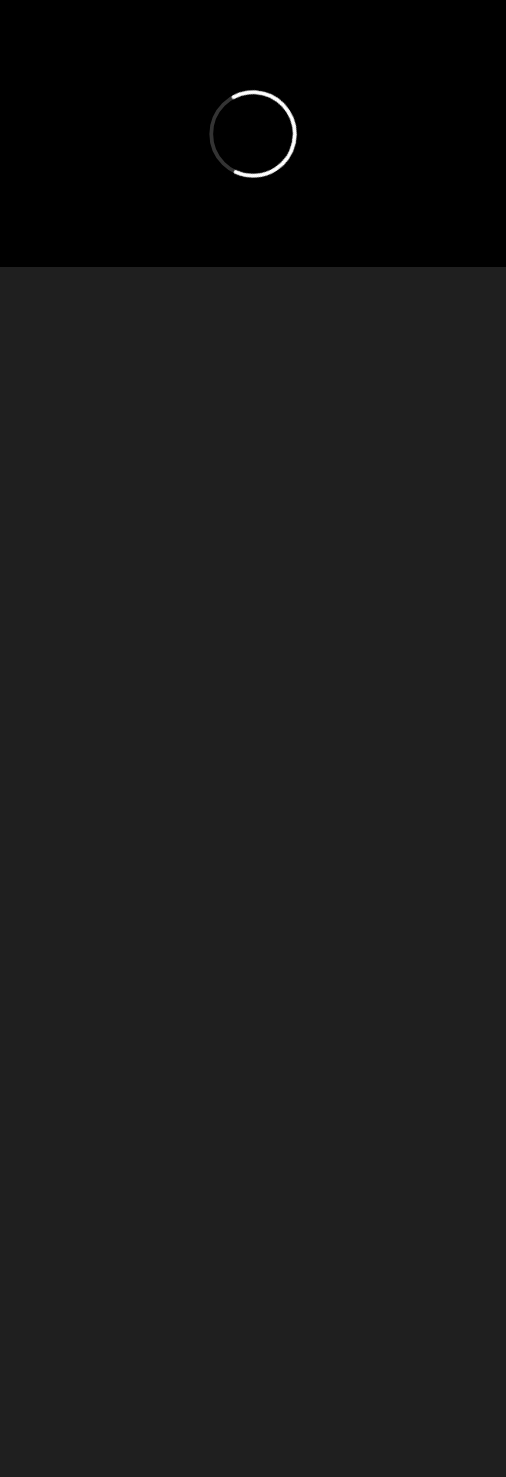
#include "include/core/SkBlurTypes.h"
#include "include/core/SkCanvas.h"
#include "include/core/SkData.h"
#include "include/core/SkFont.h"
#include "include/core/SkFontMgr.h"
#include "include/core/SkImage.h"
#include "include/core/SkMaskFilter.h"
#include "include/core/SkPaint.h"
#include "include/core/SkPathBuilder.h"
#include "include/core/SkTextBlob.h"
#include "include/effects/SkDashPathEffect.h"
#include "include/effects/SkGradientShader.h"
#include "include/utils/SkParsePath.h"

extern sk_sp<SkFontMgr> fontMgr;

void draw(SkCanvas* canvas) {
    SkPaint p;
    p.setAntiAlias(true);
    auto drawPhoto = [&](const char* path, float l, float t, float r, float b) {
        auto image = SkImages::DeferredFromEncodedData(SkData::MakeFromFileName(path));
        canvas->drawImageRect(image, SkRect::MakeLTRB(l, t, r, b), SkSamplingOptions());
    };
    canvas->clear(0xFF1F1F1F);
    drawPhoto("media/1.png", 0, 0, 506, 267);
}
